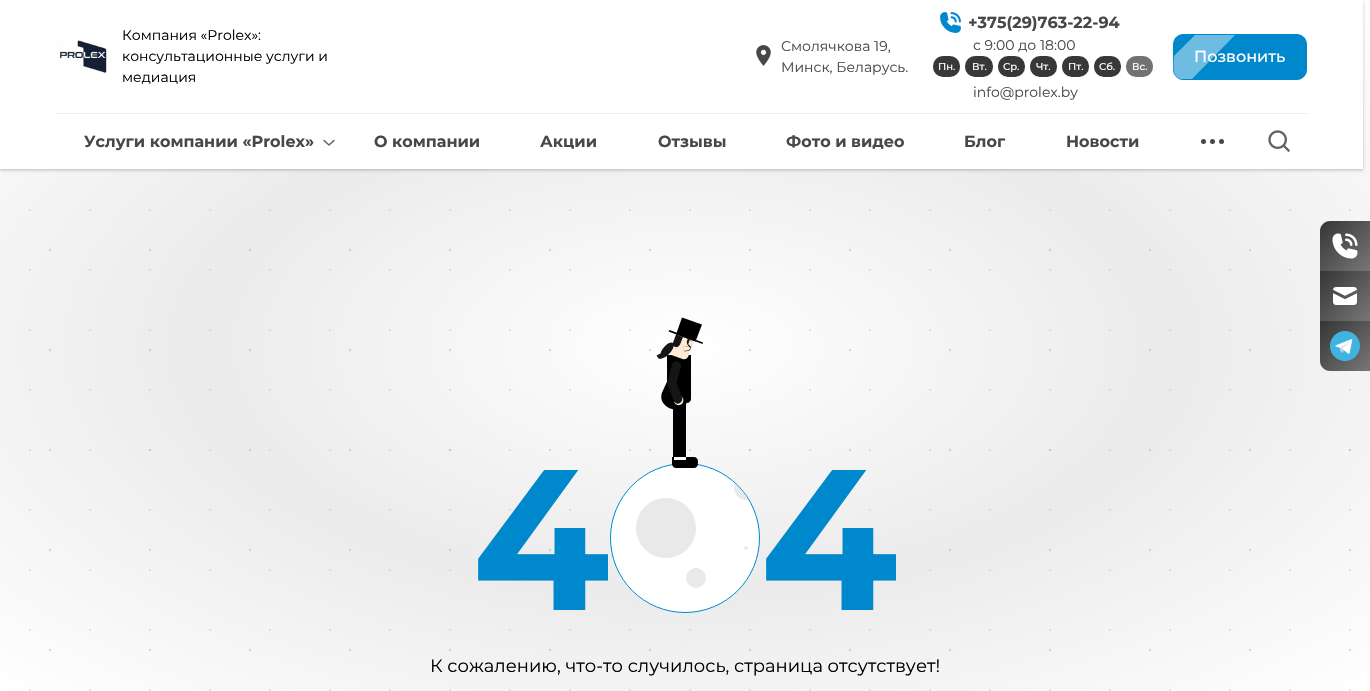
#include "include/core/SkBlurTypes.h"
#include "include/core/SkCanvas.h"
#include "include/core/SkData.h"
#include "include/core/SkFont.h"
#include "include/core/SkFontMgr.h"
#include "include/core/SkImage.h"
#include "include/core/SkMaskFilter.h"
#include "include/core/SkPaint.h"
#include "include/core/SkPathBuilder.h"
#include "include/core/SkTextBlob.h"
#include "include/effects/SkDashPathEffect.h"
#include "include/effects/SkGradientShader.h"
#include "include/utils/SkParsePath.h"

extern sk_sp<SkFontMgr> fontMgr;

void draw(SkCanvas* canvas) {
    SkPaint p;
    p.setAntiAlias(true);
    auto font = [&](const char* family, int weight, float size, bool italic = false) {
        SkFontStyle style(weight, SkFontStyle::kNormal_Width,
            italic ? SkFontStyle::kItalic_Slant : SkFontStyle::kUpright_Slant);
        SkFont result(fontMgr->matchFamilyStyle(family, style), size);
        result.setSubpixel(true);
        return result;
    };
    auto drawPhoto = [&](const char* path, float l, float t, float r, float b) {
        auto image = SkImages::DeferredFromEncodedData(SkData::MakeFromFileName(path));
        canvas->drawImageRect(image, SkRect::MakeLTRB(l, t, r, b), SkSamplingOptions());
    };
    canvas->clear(0xFFFFFFFF);
    {
        const SkColor colors[] = {0xFFFFFFFF, 0xFFECEBEB, 0xFFFFFFFF};
        const float stops[] = {0, 0.5f, 1};
        SkMatrix m = SkMatrix::Translate(685, 346).preScale(969, 489);
        p.setShader(SkGradientShader::MakeRadial({0, 0}, 1, colors, stops, 3, SkTileMode::kClamp, 0, &m));
        p.setAlpha(255);
    }
    canvas->drawRect(SkRect::MakeLTRB(0, 0, 1370, 691), p);
    p.setStyle(SkPaint::kStroke_Style);
    p.setStrokeWidth(1.3f);
    p.setStrokeCap(SkPaint::kRound_Cap);
    p.setShader(nullptr);
    p.setColor(0x8073859A);
    p.setPathEffect(SkDashPathEffect::Make({{0, 60}}, 0));
    canvas->drawPath(SkPathBuilder().moveTo(30, 210).lineTo(1350.2f, 210).detach(), p);
    p.setPathEffect(nullptr);
    p.setPathEffect(SkDashPathEffect::Make({{0, 60}}, 0));
    canvas->drawPath(SkPathBuilder().moveTo(30, 270).lineTo(1350.2f, 270).detach(), p);
    p.setPathEffect(nullptr);
    p.setPathEffect(SkDashPathEffect::Make({{0, 60}}, 0));
    canvas->drawPath(SkPathBuilder().moveTo(30, 330).lineTo(1350.2f, 330).detach(), p);
    p.setPathEffect(nullptr);
    p.setPathEffect(SkDashPathEffect::Make({{0, 60}}, 0));
    canvas->drawPath(SkPathBuilder().moveTo(30, 390).lineTo(1350.2f, 390).detach(), p);
    p.setPathEffect(nullptr);
    p.setPathEffect(SkDashPathEffect::Make({{0, 60}}, 0));
    canvas->drawPath(SkPathBuilder().moveTo(30, 450).lineTo(1350.2f, 450).detach(), p);
    p.setPathEffect(nullptr);
    p.setPathEffect(SkDashPathEffect::Make({{0, 60}}, 0));
    canvas->drawPath(SkPathBuilder().moveTo(30, 510).lineTo(1350.2f, 510).detach(), p);
    p.setPathEffect(nullptr);
    p.setPathEffect(SkDashPathEffect::Make({{0, 60}}, 0));
    canvas->drawPath(SkPathBuilder().moveTo(30, 570).lineTo(1350.2f, 570).detach(), p);
    p.setPathEffect(nullptr);
    p.setPathEffect(SkDashPathEffect::Make({{0, 60}}, 0));
    canvas->drawPath(SkPathBuilder().moveTo(30, 630).lineTo(1350.2f, 630).detach(), p);
    p.setPathEffect(nullptr);
    p.setPathEffect(SkDashPathEffect::Make({{0, 60}}, 0));
    canvas->drawPath(SkPathBuilder().moveTo(30, 690).lineTo(1350.2f, 690).detach(), p);
    p.setPathEffect(nullptr);
    p.setStrokeWidth(2.1f);
    p.setColor(0x6173859A);
    p.setPathEffect(SkDashPathEffect::Make({{0, 100}}, 0));
    canvas->drawPath(SkPathBuilder().moveTo(50, 250).lineTo(1350.2f, 250).detach(), p);
    p.setPathEffect(nullptr);
    p.setPathEffect(SkDashPathEffect::Make({{0, 100}}, 0));
    canvas->drawPath(SkPathBuilder().moveTo(50, 350).lineTo(1350.2f, 350).detach(), p);
    p.setPathEffect(nullptr);
    p.setPathEffect(SkDashPathEffect::Make({{0, 100}}, 0));
    canvas->drawPath(SkPathBuilder().moveTo(50, 450).lineTo(1350.2f, 450).detach(), p);
    p.setPathEffect(nullptr);
    p.setPathEffect(SkDashPathEffect::Make({{0, 100}}, 0));
    canvas->drawPath(SkPathBuilder().moveTo(50, 550).lineTo(1350.2f, 550).detach(), p);
    p.setPathEffect(nullptr);
    p.setPathEffect(SkDashPathEffect::Make({{0, 100}}, 0));
    canvas->drawPath(SkPathBuilder().moveTo(50, 650).lineTo(1350.2f, 650).detach(), p);
    p.setPathEffect(nullptr);
    p.setStyle(SkPaint::kFill_Style);
    p.setColor(0x12000000);
    p.setMaskFilter(SkMaskFilter::MakeBlur(kNormal_SkBlurStyle, 1));
    canvas->drawRect(SkRect::MakeLTRB(0, 0, 1363, 169), p);
    p.setMaskFilter(nullptr);
    p.setColor(0x0F000000);
    p.setMaskFilter(SkMaskFilter::MakeBlur(kNormal_SkBlurStyle, 1));
    canvas->drawRect(SkRect::MakeLTRB(0, 2, 1363, 171), p);
    p.setMaskFilter(nullptr);
    p.setColor(0x1F000000);
    p.setMaskFilter(SkMaskFilter::MakeBlur(kNormal_SkBlurStyle, 1.5f));
    canvas->drawRect(SkRect::MakeLTRB(0, 1, 1363, 170), p);
    p.setMaskFilter(nullptr);
    p.setColor(0xFFFFFFFF);
    canvas->drawRect(SkRect::MakeLTRB(0, 0, 1363, 169), p);
    drawPhoto("media/1.png", 58, 40, 107, 73);
    auto font1 = font("Montserrat", 400, 14);
    p.setColor(0xFF000000);
    {
        const struct { const char* s; float x, y; } items[] = {
            {"Компания «Prolex»:", 122, 40},
            {"консультационные услуги и", 122, 61},
            {"медиация", 122, 82},
        };
        for (auto [s, x, y] : items) {
            canvas->drawString(s, x, y, font1, p);
        }
    }
    drawPhoto("media/2.png", 756, 45, 771, 66);
    p.setColor(0xFF484848);
    canvas->drawString("Смолячкова 19,", 781, 51, font1, p);
    canvas->drawString("Минск, Беларусь.", 781, 72, font1, p);
    drawPhoto("media/3.png", 940, 12, 961, 33);
    auto font2 = font("Montserrat", 700, 16);
    canvas->drawString("+375(29)763-22-94", 968, 28, font2, p);
    canvas->drawString("с 9:00 до 18:00", 973, 50, font1, p);
    p.setColor(0xFF383838);
    canvas->drawRoundRect(SkRect::MakeLTRB(933, 56, 960, 77), 10, 10, p);
    auto font3 = font("Montserrat", 500, 10);
    p.setColor(0xFFFFFFFF);
    canvas->drawString("Пн.", 938, 70, font3, p);
    p.setColor(0xFF383838);
    canvas->drawRoundRect(SkRect::MakeLTRB(965, 56, 993, 77), 10, 10, p);
    p.setColor(0xFFFFFFFF);
    canvas->drawString("Вт.", 972, 70, font3, p);
    p.setColor(0xFF383838);
    canvas->drawRoundRect(SkRect::MakeLTRB(998, 56, 1025, 77), 10, 10, p);
    p.setColor(0xFFFFFFFF);
    canvas->drawString("Ср.", 1003, 70, font3, p);
    p.setColor(0xFF383838);
    canvas->drawRoundRect(SkRect::MakeLTRB(1030, 56, 1057, 77), 10, 10, p);
    p.setColor(0xFFFFFFFF);
    canvas->drawString("Чт.", 1036, 70, font3, p);
    p.setColor(0xFF383838);
    canvas->drawRoundRect(SkRect::MakeLTRB(1062, 56, 1089, 77), 10, 10, p);
    p.setColor(0xFFFFFFFF);
    canvas->drawString("Пт.", 1068, 70, font3, p);
    p.setColor(0xFF383838);
    canvas->drawRoundRect(SkRect::MakeLTRB(1094, 56, 1121, 77), 10, 10, p);
    p.setColor(0xFFFFFFFF);
    canvas->drawString("Сб.", 1099, 70, font3, p);
    p.setColor(0xFF727272);
    canvas->drawRoundRect(SkRect::MakeLTRB(1126, 56, 1153, 77), 10, 10, p);
    p.setColor(0xFFFFFFFF);
    canvas->drawString("Вс.", 1132, 70, font3, p);
    p.setColor(0xFF484848);
    canvas->drawString("info@prolex.by", 973, 97, font1, p);
    p.setColor(0xFF0088CC);
    canvas->drawRoundRect(SkRect::MakeLTRB(1173.5f, 34.5f, 1306.5f, 79.5f), 9.5f, 9.5f, p);
    p.setStyle(SkPaint::kStroke_Style);
    p.setStrokeWidth(1);
    p.setStrokeCap(SkPaint::kButt_Cap);
    canvas->drawRoundRect(SkRect::MakeLTRB(1173.5f, 34.5f, 1306.5f, 79.5f), 9.5f, 9.5f, p);
    auto font4 = font("Montserrat", 500, 16);
    p.setStyle(SkPaint::kFill_Style);
    p.setColor(0xFFFFFFFF);
    canvas->drawString("Позвонить", 1194, 62, font4, p);
    p.setColor(0x6EFFFFFF);
    canvas->drawPath(SkPathBuilder().moveTo(1174, 56).lineTo(1195, 35).lineTo(1235, 35).lineTo(1192, 79).lineTo(1181, 79).cubicTo(1171, 77, 1174, 64, 1174, 56).close().detach(), p);
    p.setColor(0xFFECECEE);
    canvas->drawRect(SkRect::MakeLTRB(57, 113, 1307, 114), p);
    p.setColor(0xFF484848);
    canvas->drawString("Услуги компании «Prolex»", 84, 147, font2, p);
    p.setStyle(SkPaint::kStroke_Style);
    p.setStrokeWidth(1.5f);
    p.setStrokeCap(SkPaint::kRound_Cap);
    p.setStrokeJoin(SkPaint::kRound_Join);
    p.setColor(0xFF626262);
    canvas->drawPath(SkPathBuilder().moveTo(334, 140.5f).lineTo(329, 145).lineTo(324, 140.5f).detach(), p);
    p.setStyle(SkPaint::kFill_Style);
    p.setColor(0xFF484848);
    {
        const struct { const char* s; float x, y; } items[] = {
            {"О компании", 374, 147},
            {"Акции", 540, 147},
            {"Отзывы", 658, 147},
            {"Фото и видео", 786, 147},
            {"Блог", 964, 147},
            {"Новости", 1066, 147},
        };
        for (auto [s, x, y] : items) {
            canvas->drawString(s, x, y, font2, p);
        }
    }
    canvas->drawCircle(1203.5f, 141.5f, 2.5f, p);
    canvas->drawCircle(1212.5f, 141.5f, 2.5f, p);
    canvas->drawCircle(1221.5f, 141.5f, 2.5f, p);
    drawPhoto("media/4.png", 1268, 130, 1290, 152);
    p.setColor(0xFF000000);
    canvas->drawRect(SkRect::MakeLTRB(667, 355, 687, 397), p);
    canvas->drawPath(SkPathBuilder().moveTo(687, 355).lineTo(691, 355).lineTo(691, 399).cubicTo(691, 401, 689, 403, 687, 403).close().detach(), p);
    p.setColor(0xFFFEEAD6);
    canvas->drawPath(SkPathBuilder().moveTo(677, 334.5f).lineTo(694, 341).lineTo(688.5f, 356).cubicTo(687.5f, 358.5f, 685, 360, 682.5f, 359).lineTo(670, 354.5f).close().detach(), p);
    p.setColor(0xFF000000);
    canvas->drawPath(SkPathBuilder().moveTo(682, 317.5f).lineTo(702, 324.5f).lineTo(695.5f, 341.5f).lineTo(676, 334.5f).close().detach(), p);
    p.setColor(0xFF151515);
    canvas->drawPath(SkPathBuilder().moveTo(676, 334.5f).lineTo(683, 337).lineTo(680, 344.5f).cubicTo(679, 346.5f, 677, 347.5f, 675.5f, 347).lineTo(672, 345.5f).close().detach(), p);
    canvas->drawPath(SkPathBuilder().moveTo(673, 343).cubicTo(677, 346.5f, 665.5f, 360.5f, 661.5f, 357).cubicTo(657, 353.5f, 668.5f, 339.5f, 673, 343).close().detach(), p);
    canvas->drawPath(SkPathBuilder(SkPathFillType::kEvenOdd).moveTo(688, 338).lineTo(692.5f, 342.5f).lineTo(690.5f, 348).cubicTo(689, 346.5f, 686, 344, 687, 341).close().moveTo(690, 339.5f).lineTo(692.5f, 342.5f).lineTo(691, 347).cubicTo(689.5f, 345.5f, 688, 345, 688.5f, 343).close().detach(), p);
    p.setColor(0xFF000000);
    canvas->drawPath(SkPathBuilder().moveTo(669.5f, 330).lineTo(703, 342.5f).lineTo(702.5f, 344).lineTo(668.5f, 331.5f).close().detach(), p);
    p.setColor(0xFF151515);
    canvas->drawPath(SkPathBuilder().moveTo(666.5f, 356).cubicTo(665, 357, 660.5f, 360, 658.5f, 358.5f).lineTo(656.5f, 355.5f).cubicTo(660, 353.5f, 664, 351.5f, 666.5f, 356).close().detach(), p);
    canvas->drawPath(SkPathBuilder(SkPathFillType::kEvenOdd).moveTo(682.5f, 347).lineTo(690, 345.5f).cubicTo(692, 350.5f, 688.5f, 351, 684.5f, 351.5f).close().moveTo(682.5f, 347).lineTo(689.5f, 346).cubicTo(691.5f, 350, 688, 350.5f, 684.5f, 351).close().detach(), p);
    p.setColor(0xFF000000);
    canvas->drawRect(SkRect::MakeLTRB(673, 404, 686, 430), p);
    canvas->drawPath(SkPathBuilder().moveTo(667.5f, 380.5f).lineTo(683, 388).cubicTo(687, 391, 688.5f, 396, 687.5f, 400.5f).cubicTo(683.5f, 418, 655, 407.5f, 662.5f, 391.5f).close().detach(), p);
    p.setColor(0xFF151515);
    canvas->drawPath(SkPathBuilder().moveTo(677.5f, 361.5f).cubicTo(680, 362, 681.5f, 364.5f, 681, 367).lineTo(675.5f, 386).lineTo(667, 383.5f).lineTo(672, 365).cubicTo(672.5f, 362.5f, 675, 361, 677.5f, 361.5f).close().detach(), p);
    p.setColor(0xFFFEEAD6);
    canvas->drawPath(SkPathBuilder().moveTo(680, 396).cubicTo(686, 397.5f, 683.5f, 406.5f, 677.5f, 405).cubicTo(671.5f, 403.5f, 674, 394, 680, 396).close().detach(), p);
    p.setColor(0xFF151515);
    canvas->drawPath(SkPathBuilder().moveTo(667, 382.5f).lineTo(675, 379).lineTo(682, 397.5f).cubicTo(683, 400, 681.5f, 402.5f, 679, 403.5f).cubicTo(677, 404, 674.5f, 403, 673.5f, 400.5f).close().detach(), p);
    p.setColor(0xFFFFFFFF);
    canvas->drawCircle(685, 538, 74.5f, p);
    p.setStyle(SkPaint::kStroke_Style);
    p.setStrokeWidth(1);
    p.setStrokeCap(SkPaint::kButt_Cap);
    p.setStrokeJoin(SkPaint::kMiter_Join);
    p.setColor(0xFF0088CC);
    canvas->drawCircle(685, 538, 74.5f, p);
    p.setStyle(SkPaint::kFill_Style);
    p.setColor(0xFF000000);
    canvas->drawPath(SkPathBuilder().moveTo(672, 457).lineTo(694, 457).cubicTo(696, 457, 698, 459, 698, 461).cubicTo(698, 463, 696, 465, 694, 465).lineTo(676, 465).cubicTo(674, 465, 672, 463, 672, 461).close().detach(), p);
    canvas->drawPath(SkPathBuilder().moveTo(673, 430).lineTo(686, 430).lineTo(686, 459).cubicTo(686, 459.5f, 685.5f, 460, 685, 460).lineTo(674, 460).cubicTo(673.5f, 460, 673, 459.5f, 673, 459).close().detach(), p);
    p.setColor(0xFFFFFFFF);
    canvas->drawRect(SkRect::MakeLTRB(674, 457, 686, 460), p);
    p.setColor(0xFF000000);
    canvas->drawPath(SkPathBuilder().moveTo(672, 460).lineTo(694, 460).cubicTo(696, 460, 698, 462, 698, 464).cubicTo(698, 466, 696, 468, 694, 468).lineTo(676, 468).cubicTo(674, 468, 672, 466, 672, 464).close().detach(), p);
    auto font5 = font("Montserrat", 700, 200);
    p.setColor(0xFF0088CC);
    canvas->drawString("4", 472, 610, font5, p);
    p.setColor(0xFFE9E9E9);
    canvas->drawPath(SkPathBuilder().moveTo(735, 483.5f).cubicTo(731.5f, 492, 739, 501.5f, 748.5f, 500).cubicTo(744.5f, 493.5f, 740, 488, 735, 483.5f).close().detach(), p);
    canvas->drawCircle(746, 548, 2, p);
    canvas->drawCircle(666, 528, 30, p);
    canvas->drawCircle(696, 578, 10, p);
    p.setColor(0xFF0088CC);
    canvas->drawString("4", 760, 610, font5, p);
    auto font6 = font("Montserrat", 400, 18);
    p.setColor(0xFF000000);
    canvas->drawString("К сожалению, что-то случилось, страница отсутствует!", 430, 672, font6, p);
    {
        const SkColor colors[] = {0xFF353535, 0xFF777777, 0xFF000000, 0xFFC9C9C9, 0xFFF8F8F8};
        const float stops[] = {0, 1, 1, 1, 1};
        const SkPoint ends[] = {{1319, 222}, {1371, 270}};
        p.setShader(SkGradientShader::MakeLinear(ends, colors, stops, 5, SkTileMode::kClamp));
        p.setAlpha(255);
    }
    canvas->drawPath(SkPathBuilder().moveTo(1330, 221).lineTo(1370, 221).lineTo(1370, 271).lineTo(1320, 271).lineTo(1320, 231).cubicTo(1320, 225.5f, 1324.5f, 221, 1330, 221).close().detach(), p);
    drawPhoto("media/5.png", 1332, 233, 1358, 259);
    {
        const SkColor colors[] = {0xFF353535, 0xFF777777, 0xFF000000, 0xFFC9C9C9, 0xFFF8F8F8};
        const float stops[] = {0, 1, 1, 1, 1};
        const SkPoint ends[] = {{1319, 272}, {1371, 320}};
        p.setShader(SkGradientShader::MakeLinear(ends, colors, stops, 5, SkTileMode::kClamp));
        p.setAlpha(255);
    }
    canvas->drawRect(SkRect::MakeLTRB(1320, 271, 1370, 321), p);
    drawPhoto("media/6.png", 1333, 287, 1357, 305);
    {
        const SkColor colors[] = {0xFF353535, 0xFF777777, 0xFF000000, 0xFFC9C9C9, 0xFFF8F8F8};
        const float stops[] = {0, 1, 1, 1, 1};
        const SkPoint ends[] = {{1319, 322}, {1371, 370}};
        p.setShader(SkGradientShader::MakeLinear(ends, colors, stops, 5, SkTileMode::kClamp));
        p.setAlpha(255);
    }
    canvas->drawPath(SkPathBuilder().moveTo(1320, 321).lineTo(1370, 321).lineTo(1370, 371).lineTo(1330, 371).cubicTo(1324.5f, 371, 1320, 366.5f, 1320, 361).close().detach(), p);
    drawPhoto("media/7.png", 1330, 331, 1360, 361);
}
